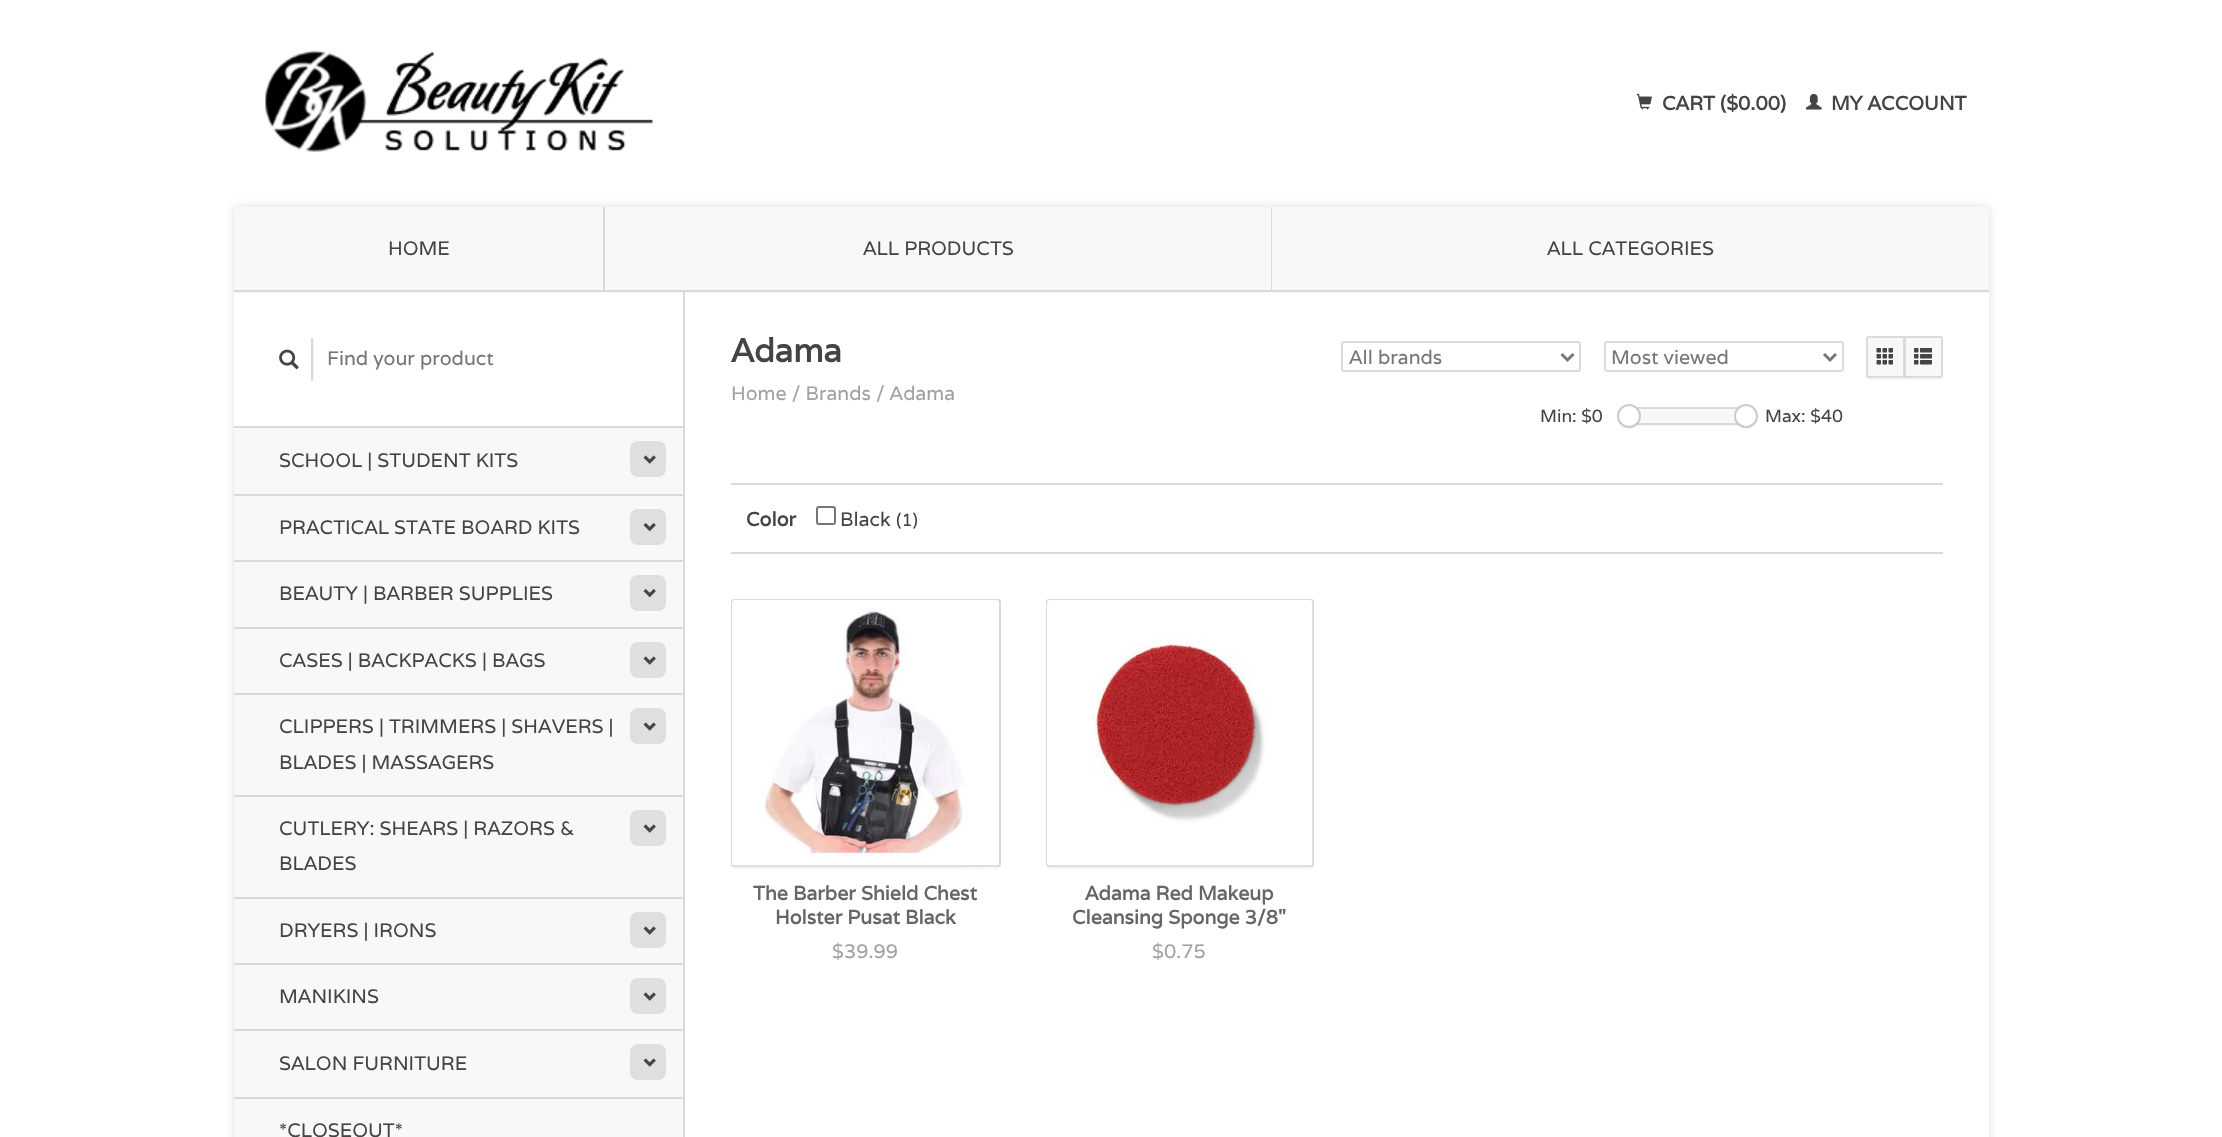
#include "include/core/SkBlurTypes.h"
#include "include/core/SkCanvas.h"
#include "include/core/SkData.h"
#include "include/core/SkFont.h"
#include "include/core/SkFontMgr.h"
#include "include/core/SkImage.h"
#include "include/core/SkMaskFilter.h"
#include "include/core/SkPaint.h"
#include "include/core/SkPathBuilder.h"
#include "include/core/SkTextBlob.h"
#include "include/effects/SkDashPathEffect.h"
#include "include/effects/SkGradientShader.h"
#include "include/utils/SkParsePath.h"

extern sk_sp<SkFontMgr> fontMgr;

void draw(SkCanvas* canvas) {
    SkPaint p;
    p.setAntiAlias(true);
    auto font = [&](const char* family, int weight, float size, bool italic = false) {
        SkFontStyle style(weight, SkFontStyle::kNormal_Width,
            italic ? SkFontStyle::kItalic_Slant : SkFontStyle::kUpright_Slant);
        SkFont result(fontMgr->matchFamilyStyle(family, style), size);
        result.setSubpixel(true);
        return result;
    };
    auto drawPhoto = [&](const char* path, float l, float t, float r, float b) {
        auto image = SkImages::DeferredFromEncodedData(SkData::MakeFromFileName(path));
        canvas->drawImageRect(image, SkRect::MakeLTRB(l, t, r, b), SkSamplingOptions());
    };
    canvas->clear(0xFFFFFFFF);
    drawPhoto("media/1.png", 265, 50, 653, 152);
    drawPhoto("media/2.png", 1636, 93, 1652, 110);
    auto font1 = font("Varela", 700, 19.5f);
    p.setColor(0xFF444444);
    canvas->drawString("CART ($0.00)", 1662, 110, font1, p);
    drawPhoto("media/3.png", 1806, 93, 1822, 110);
    canvas->drawString("MY ACCOUNT", 1831, 110, font1, p);
    p.setColor(0x21000000);
    p.setMaskFilter(SkMaskFilter::MakeBlur(kNormal_SkBlurStyle, 5));
    canvas->drawRoundRect(SkRect::MakeLTRB(234, 207, 1989, 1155), 3, 3, p);
    p.setMaskFilter(nullptr);
    {
        const struct { float l, t, r, b; SkColor color; } items[] = {
            {234, 293, 1989, 1137, 0xFFFFFFFF},
            {234, 292, 1989, 293, 0xFFF5F5F5},
            {234, 290, 1989, 292, 0xFFDADADA},
            {234, 207, 603, 290, 0xFFF8F8F8},
            {603, 207, 605, 290, 0xFFDADADA},
        };
        for (auto [l, t, r, b, color] : items) {
            p.setColor(color);
            canvas->drawRect(SkRect::MakeLTRB(l, t, r, b), p);
        }
    }
    auto font2 = font("Varela", 400, 19.5f);
    p.setColor(0xFF444444);
    canvas->drawString("HOME", 388, 255, font2, p);
    p.setColor(0xFFF8F8F8);
    canvas->drawRect(SkRect::MakeLTRB(605, 207, 1271, 290), p);
    p.setColor(0xFFDADADA);
    canvas->drawRect(SkRect::MakeLTRB(1271, 207, 1272, 290), p);
    p.setColor(0xFF444444);
    canvas->drawString("ALL PRODUCTS", 863, 255, font2, p);
    p.setColor(0xFFF8F8F8);
    canvas->drawRect(SkRect::MakeLTRB(1272, 207, 1989, 290), p);
    p.setColor(0xFF444444);
    canvas->drawString("ALL CATEGORIES", 1547, 255, font2, p);
    p.setColor(0xFFDADADA);
    canvas->drawRect(SkRect::MakeLTRB(683, 291, 685, 1137), p);
    canvas->save();
    canvas->clipRect(SkRect::MakeLTRB(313, 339, 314, 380));
    p.setColor(0x0F000000);
    p.setMaskFilter(SkMaskFilter::MakeBlur(kNormal_SkBlurStyle, 1));
    canvas->drawRect(SkRect::MakeLTRB(272, 339, 314, 380), p);
    p.setMaskFilter(nullptr);
    canvas->restore();
    p.setColor(0xFFDADADA);
    canvas->drawRect(SkRect::MakeLTRB(311, 338, 313, 381), p);
    drawPhoto("media/4.png", 279, 349, 299, 370);
    p.setColor(0xFF757575);
    canvas->drawString("Find your product", 327, 365, font2, p);
    p.setColor(0xFFF8F8F8);
    canvas->drawRect(SkRect::MakeLTRB(234, 428, 683, 494), p);
    p.setColor(0xFFDADADA);
    canvas->drawRect(SkRect::MakeLTRB(234, 426, 683, 428), p);
    p.setColor(0xFF444444);
    canvas->drawString("SCHOOL | STUDENT KITS", 279, 467, font2, p);
    p.setColor(0xFFDFDFDF);
    canvas->drawRoundRect(SkRect::MakeLTRB(630, 441, 666, 477), 8, 8, p);
    drawPhoto("media/5.png", 643, 455, 656, 464);
    p.setColor(0xFFF8F8F8);
    canvas->drawRect(SkRect::MakeLTRB(234, 496, 683, 560), p);
    p.setColor(0xFFDADADA);
    canvas->drawRect(SkRect::MakeLTRB(234, 494, 683, 496), p);
    p.setColor(0xFF444444);
    canvas->drawString("PRACTICAL STATE BOARD KITS", 279, 534, font2, p);
    p.setColor(0xFFDFDFDF);
    canvas->drawRoundRect(SkRect::MakeLTRB(630, 509, 666, 545), 8, 8, p);
    drawPhoto("media/6.png", 643, 523, 656, 532);
    p.setColor(0xFFF8F8F8);
    canvas->drawRect(SkRect::MakeLTRB(234, 562, 683, 627), p);
    p.setColor(0xFFDADADA);
    canvas->drawRect(SkRect::MakeLTRB(234, 560, 683, 562), p);
    p.setColor(0xFF444444);
    canvas->drawString("BEAUTY | BARBER SUPPLIES", 279, 600, font2, p);
    p.setColor(0xFFDFDFDF);
    canvas->drawRoundRect(SkRect::MakeLTRB(630, 575, 666, 611), 8, 8, p);
    drawPhoto("media/6.png", 643, 589, 656, 598);
    p.setColor(0xFFF8F8F8);
    canvas->drawRect(SkRect::MakeLTRB(234, 629, 683, 693), p);
    p.setColor(0xFFDADADA);
    canvas->drawRect(SkRect::MakeLTRB(234, 627, 683, 629), p);
    p.setColor(0xFF444444);
    canvas->drawString("CASES | BACKPACKS | BAGS", 279, 667, font2, p);
    p.setColor(0xFFDFDFDF);
    canvas->drawRoundRect(SkRect::MakeLTRB(630, 642, 666, 678), 8, 8, p);
    drawPhoto("media/5.png", 643, 656, 656, 665);
    p.setColor(0xFFF8F8F8);
    canvas->drawRect(SkRect::MakeLTRB(234, 695, 683, 795), p);
    p.setColor(0xFFDADADA);
    canvas->drawRect(SkRect::MakeLTRB(234, 693, 683, 695), p);
    p.setColor(0xFF444444);
    canvas->drawString("CLIPPERS | TRIMMERS | SHAVERS |", 279, 733, font2, p);
    canvas->drawString("BLADES | MASSAGERS", 279, 769, font2, p);
    p.setColor(0xFFDFDFDF);
    canvas->drawRoundRect(SkRect::MakeLTRB(630, 708, 666, 744), 8, 8, p);
    drawPhoto("media/5.png", 643, 722, 656, 731);
    p.setColor(0xFFF8F8F8);
    canvas->drawRect(SkRect::MakeLTRB(234, 797, 683, 897), p);
    p.setColor(0xFFDADADA);
    canvas->drawRect(SkRect::MakeLTRB(234, 795, 683, 797), p);
    p.setColor(0xFF444444);
    canvas->drawString("CUTLERY: SHEARS | RAZORS &", 279, 835, font2, p);
    canvas->drawString("BLADES", 279, 870, font2, p);
    p.setColor(0xFFDFDFDF);
    canvas->drawRoundRect(SkRect::MakeLTRB(630, 810, 666, 846), 8, 8, p);
    drawPhoto("media/5.png", 643, 824, 656, 833);
    p.setColor(0xFFF8F8F8);
    canvas->drawRect(SkRect::MakeLTRB(234, 899, 683, 963), p);
    p.setColor(0xFFDADADA);
    canvas->drawRect(SkRect::MakeLTRB(234, 897, 683, 899), p);
    p.setColor(0xFF444444);
    canvas->drawString("DRYERS | IRONS", 279, 937, font2, p);
    p.setColor(0xFFDFDFDF);
    canvas->drawRoundRect(SkRect::MakeLTRB(630, 912, 666, 948), 8, 8, p);
    drawPhoto("media/5.png", 643, 926, 656, 935);
    p.setColor(0xFFF8F8F8);
    canvas->drawRect(SkRect::MakeLTRB(234, 965, 683, 1029), p);
    p.setColor(0xFFDADADA);
    canvas->drawRect(SkRect::MakeLTRB(234, 963, 683, 965), p);
    p.setColor(0xFF444444);
    canvas->drawString("MANIKINS", 279, 1003, font2, p);
    p.setColor(0xFFDFDFDF);
    canvas->drawRoundRect(SkRect::MakeLTRB(630, 978, 666, 1014), 8, 8, p);
    drawPhoto("media/5.png", 643, 992, 656, 1001);
    p.setColor(0xFFF8F8F8);
    canvas->drawRect(SkRect::MakeLTRB(234, 1031, 683, 1097), p);
    p.setColor(0xFFDADADA);
    canvas->drawRect(SkRect::MakeLTRB(234, 1029, 683, 1031), p);
    p.setColor(0xFF444444);
    canvas->drawString("SALON FURNITURE", 279, 1070, font2, p);
    p.setColor(0xFFDFDFDF);
    canvas->drawRoundRect(SkRect::MakeLTRB(630, 1044, 666, 1080), 8, 8, p);
    drawPhoto("media/5.png", 643, 1058, 656, 1067);
    p.setColor(0xFFF8F8F8);
    canvas->drawRect(SkRect::MakeLTRB(234, 1099, 683, 1137), p);
    p.setColor(0xFFDADADA);
    canvas->drawRect(SkRect::MakeLTRB(234, 1097, 683, 1099), p);
    p.setColor(0xFF444444);
    canvas->drawString("*CLOSEOUT*", 279, 1137, font2, p);
    auto font3 = font("Varela", 700, 33);
    canvas->drawString("Adama", 731, 362, font3, p);
    p.setColor(0xFFA1A1A1);
    canvas->drawString("Home / Brands / Adama", 731, 400, font2, p);
    p.setStyle(SkPaint::kStroke_Style);
    p.setStrokeWidth(2);
    p.setColor(0xFFDADADA);
    canvas->drawRoundRect(SkRect::MakeLTRB(1342, 342, 1580, 371), 2, 2, p);
    p.setStrokeWidth(3);
    p.setColor(0xFF777777);
    canvas->drawPath(SkPathBuilder().moveTo(1561.5f, 354).lineTo(1567.5f, 360).lineTo(1573.5f, 354).detach(), p);
    p.setStyle(SkPaint::kFill_Style);
    p.setColor(0xFF757575);
    canvas->drawString("All brands", 1349, 364, font2, p);
    p.setStyle(SkPaint::kStroke_Style);
    p.setStrokeWidth(2);
    p.setColor(0xFFDADADA);
    canvas->drawRoundRect(SkRect::MakeLTRB(1605, 342, 1843, 371), 2, 2, p);
    p.setStrokeWidth(3);
    p.setColor(0xFF777777);
    canvas->drawPath(SkPathBuilder().moveTo(1824, 354).lineTo(1830, 360).lineTo(1836, 354).detach(), p);
    p.setStyle(SkPaint::kFill_Style);
    p.setColor(0xFF757575);
    canvas->drawString("Most viewed", 1611, 364, font2, p);
    p.setColor(0xFFF5F5F5);
    canvas->drawPath(SkPathBuilder().moveTo(1866, 375).lineTo(1866, 377).cubicTo(1866, 378.5f, 1867.5f, 380, 1869, 380).lineTo(1905, 380).lineTo(1905, 378).lineTo(1869, 378).cubicTo(1867.5f, 378, 1866, 376.5f, 1866, 375).close().detach(), p);
    p.setColor(0xFFF8F8F8);
    canvas->drawPath(SkPathBuilder().moveTo(1869, 337).lineTo(1904, 337).lineTo(1904, 377).lineTo(1869, 377).cubicTo(1868, 377, 1867, 376, 1867, 375).lineTo(1867, 339).cubicTo(1867, 338, 1868, 337, 1869, 337).close().detach(), p);
    p.setStyle(SkPaint::kStroke_Style);
    p.setStrokeWidth(2);
    p.setColor(0xFFDADADA);
    canvas->drawPath(SkPathBuilder().moveTo(1869, 337).lineTo(1904, 337).lineTo(1904, 377).lineTo(1869, 377).cubicTo(1868, 377, 1867, 376, 1867, 375).lineTo(1867, 339).cubicTo(1867, 338, 1868, 337, 1869, 337).close().detach(), p);
    drawPhoto("media/7.png", 1876, 348, 1893, 365);
    p.setStyle(SkPaint::kFill_Style);
    p.setColor(0x0A000000);
    canvas->drawPath(SkPathBuilder().moveTo(1904, 378).lineTo(1904, 380).lineTo(1934, 380).cubicTo(1946, 380, 1943, 379, 1943, 365).cubicTo(1943, 361, 1944, 342, 1942, 339).lineTo(1942, 375).cubicTo(1942, 377, 1941, 378, 1940, 378).close().detach(), p);
    p.setColor(0xFFF8F8F8);
    canvas->drawPath(SkPathBuilder().moveTo(1905, 337).lineTo(1940, 337).cubicTo(1941, 337, 1942, 338, 1942, 339).lineTo(1942, 375).cubicTo(1942, 376, 1941, 377, 1940, 377).lineTo(1905, 377).close().detach(), p);
    p.setStyle(SkPaint::kStroke_Style);
    p.setColor(0xFFDADADA);
    canvas->drawPath(SkPathBuilder().moveTo(1905, 337).lineTo(1940, 337).cubicTo(1941, 337, 1942, 338, 1942, 339).lineTo(1942, 375).cubicTo(1942, 376, 1941, 377, 1940, 377).lineTo(1905, 377).close().detach(), p);
    drawPhoto("media/8.png", 1914, 348, 1932, 365);
    auto font4 = font("Varela", 400, 17.5f);
    p.setStyle(SkPaint::kFill_Style);
    p.setColor(0xFF444444);
    canvas->drawString("Min: $0", 1540, 422, font4, p);
    p.setColor(0x0A000000);
    canvas->drawPath(SkPathBuilder().moveTo(1631, 424).lineTo(1631, 426).lineTo(1748, 426).lineTo(1748, 408).lineTo(1748, 424).close().detach(), p);
    p.setColor(0xFFF8F8F8);
    canvas->drawRect(SkRect::MakeLTRB(1638, 409, 1737, 423), p);
    p.setStyle(SkPaint::kStroke_Style);
    p.setColor(0xFFDADADA);
    canvas->drawRect(SkRect::MakeLTRB(1632, 408, 1747, 424), p);
    p.setStyle(SkPaint::kFill_Style);
    p.setColor(0x0A000000);
    canvas->drawPath(SkPathBuilder().moveTo(1641, 416).cubicTo(1640, 431, 1618, 431, 1617, 416).cubicTo(1616.5f, 428.5f, 1632, 434, 1639, 423.5f).cubicTo(1640.5f, 421.5f, 1641, 419, 1641, 416).close().detach(), p);
    p.setColor(0xFFFFFFFF);
    canvas->drawCircle(1629, 416, 11, p);
    p.setStyle(SkPaint::kStroke_Style);
    p.setColor(0xFFCBCBCB);
    canvas->drawCircle(1629, 416, 11, p);
    p.setStyle(SkPaint::kFill_Style);
    p.setColor(0x0A000000);
    canvas->drawPath(SkPathBuilder().moveTo(1758, 416).cubicTo(1757, 431, 1735, 431, 1734, 416).cubicTo(1733.5f, 428.5f, 1749, 434, 1756, 423.5f).cubicTo(1757.5f, 421.5f, 1758, 419, 1758, 416).close().detach(), p);
    p.setColor(0xFFFFFFFF);
    canvas->drawCircle(1746, 416, 11, p);
    p.setStyle(SkPaint::kStroke_Style);
    p.setColor(0xFFCBCBCB);
    canvas->drawCircle(1746, 416, 11, p);
    p.setStyle(SkPaint::kFill_Style);
    p.setColor(0xFF444444);
    canvas->drawString("Max: $40", 1765, 422, font4, p);
    p.setColor(0xFFDADADA);
    canvas->drawRect(SkRect::MakeLTRB(731, 483, 1943, 485), p);
    p.setColor(0xFF444444);
    canvas->drawString("Color", 746, 526, font1, p);
    p.setStyle(SkPaint::kStroke_Style);
    p.setColor(0xFF767676);
    canvas->drawRoundRect(SkRect::MakeLTRB(817, 507, 835, 524), 2, 2, p);
    p.setStyle(SkPaint::kFill_Style);
    p.setColor(0xFF444444);
    canvas->drawString("Black", 840, 526, font2, p);
    canvas->drawString("(1)", 896, 526, font4, p);
    p.setColor(0xFFDADADA);
    canvas->drawRect(SkRect::MakeLTRB(731, 552, 1943, 554), p);
    p.setColor(0xFFF5F5F5);
    canvas->drawPath(SkPathBuilder().moveTo(731, 866).cubicTo(731, 868, 732, 869, 734, 869).lineTo(998, 869).cubicTo(1000, 869, 1001, 868, 1001, 866).lineTo(1001, 603).lineTo(1000, 601).lineTo(1000, 820).cubicTo(1000, 880, 1013, 867, 954, 867).lineTo(733, 867).close().detach(), p);
    p.setStyle(SkPaint::kStroke_Style);
    p.setColor(0xFFDADADA);
    canvas->drawRoundRect(SkRect::MakeLTRB(732, 600, 1000, 866), 2, 2, p);
    drawPhoto("media/9.png", 732, 600, 999, 866);
    p.setStyle(SkPaint::kFill_Style);
    p.setColor(0xFF666666);
    canvas->drawString("The Barber Shield Chest", 753, 900, font1, p);
    canvas->drawString("Holster Pusat Black", 775, 924, font1, p);
    p.setColor(0xFFA1A1A1);
    canvas->drawString("$39.99", 832, 958, font2, p);
    p.setColor(0xFFF5F5F5);
    canvas->drawPath(SkPathBuilder().moveTo(1046, 866).cubicTo(1046, 867, 1047, 869, 1049, 869).lineTo(1311, 869).cubicTo(1314, 869, 1314, 866, 1314, 864).cubicTo(1314, 866, 1313, 867, 1311, 867).lineTo(1048, 867).cubicTo(1047, 867, 1047, 866, 1046, 866).close().detach(), p);
    p.setStyle(SkPaint::kStroke_Style);
    p.setColor(0xFFDADADA);
    canvas->drawRoundRect(SkRect::MakeLTRB(1047, 600, 1313, 866), 2, 2, p);
    drawPhoto("media/10.png", 1047, 600, 1313, 866);
    p.setStyle(SkPaint::kFill_Style);
    p.setColor(0xFF666666);
    canvas->drawString("Adama Red Makeup", 1085, 900, font1, p);
    canvas->drawString("Cleansing Sponge 3/8\"", 1072, 924, font1, p);
    p.setColor(0xFFA1A1A1);
    canvas->drawString("$0.75", 1152, 958, font2, p);
}
